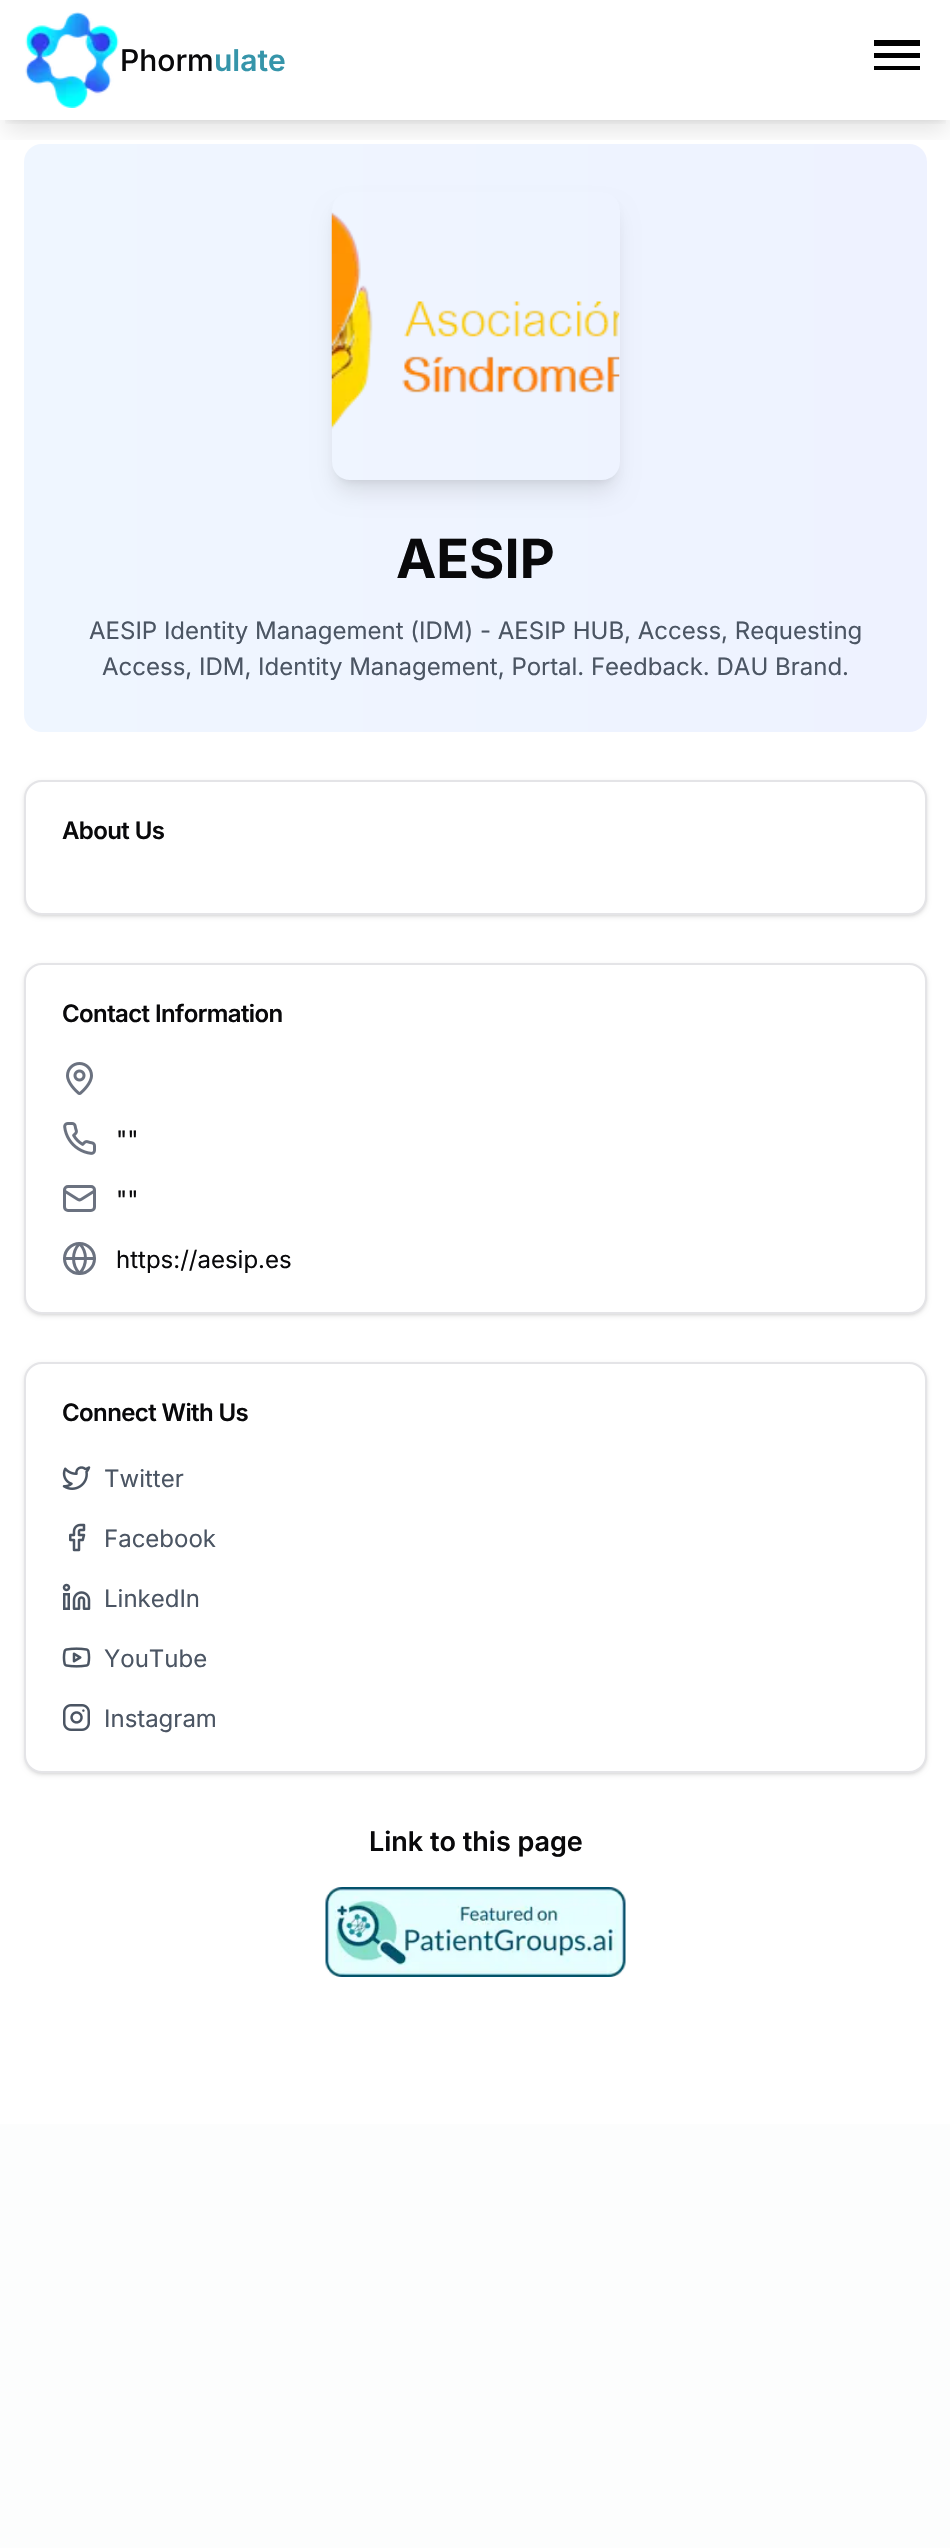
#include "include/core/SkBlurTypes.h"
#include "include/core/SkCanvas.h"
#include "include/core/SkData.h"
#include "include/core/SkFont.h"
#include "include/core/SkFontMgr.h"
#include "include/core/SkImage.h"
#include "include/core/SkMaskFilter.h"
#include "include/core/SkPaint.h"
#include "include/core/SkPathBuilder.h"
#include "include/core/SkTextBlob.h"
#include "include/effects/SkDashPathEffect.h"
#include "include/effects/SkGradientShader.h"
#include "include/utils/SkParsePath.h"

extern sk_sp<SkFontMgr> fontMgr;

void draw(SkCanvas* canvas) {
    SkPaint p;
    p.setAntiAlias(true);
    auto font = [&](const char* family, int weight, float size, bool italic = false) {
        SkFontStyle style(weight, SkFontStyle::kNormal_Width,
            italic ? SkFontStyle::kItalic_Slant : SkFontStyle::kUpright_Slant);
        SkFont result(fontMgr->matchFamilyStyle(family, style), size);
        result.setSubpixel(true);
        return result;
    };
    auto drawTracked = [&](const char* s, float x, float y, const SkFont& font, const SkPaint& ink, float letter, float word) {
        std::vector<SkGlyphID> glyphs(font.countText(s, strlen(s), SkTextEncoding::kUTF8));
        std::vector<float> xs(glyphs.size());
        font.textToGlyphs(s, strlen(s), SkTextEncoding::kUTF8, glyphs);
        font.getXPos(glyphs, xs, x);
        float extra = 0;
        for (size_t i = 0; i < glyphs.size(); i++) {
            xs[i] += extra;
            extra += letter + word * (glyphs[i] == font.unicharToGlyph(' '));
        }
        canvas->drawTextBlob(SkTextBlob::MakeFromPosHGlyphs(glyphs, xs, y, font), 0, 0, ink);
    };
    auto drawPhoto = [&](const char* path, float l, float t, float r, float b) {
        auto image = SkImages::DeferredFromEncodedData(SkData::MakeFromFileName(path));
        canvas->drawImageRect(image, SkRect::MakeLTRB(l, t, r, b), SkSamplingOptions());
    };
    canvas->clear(0xFFFFFFFF);
    {
        const SkColor colors[] = {0xFFFFFFFF, 0xFFFCFDFD};
        const float stops[] = {0, 1};
        const SkPoint ends[] = {{475, 0}, {476, 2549}};
        p.setShader(SkGradientShader::MakeLinear(ends, colors, stops, 2, SkTileMode::kClamp));
        p.setAlpha(255);
    }
    canvas->drawRect(SkRect::MakeLTRB(0, 2124, 950, 2548), p);
    canvas->save();
    canvas->clipRect(SkRect::MakeLTRB(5, 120, 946, 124));
    p.setShader(nullptr);
    p.setColor(0x1A000000);
    p.setMaskFilter(SkMaskFilter::MakeBlur(kNormal_SkBlurStyle, 4.5f));
    canvas->drawRect(SkRect::MakeLTRB(6, 12, 945, 120), p);
    p.setMaskFilter(nullptr);
    canvas->restore();
    {
        const SkColor colors[] = {0xFFEFF6FF, 0xFFEEF2FF};
        const float stops[] = {0, 1};
        const SkPoint ends[] = {{24, 438}, {927, 438}};
        p.setShader(SkGradientShader::MakeLinear(ends, colors, stops, 2, SkTileMode::kClamp));
        p.setAlpha(255);
    }
    canvas->drawRoundRect(SkRect::MakeLTRB(24, 144, 927, 732), 18, 18, p);
    canvas->save();
    canvas->clipRect(SkRect::MakeLTRB(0, 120, 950, 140));
    p.setShader(nullptr);
    p.setColor(0x1A000000);
    p.setMaskFilter(SkMaskFilter::MakeBlur(kNormal_SkBlurStyle, 11));
    canvas->drawRect(SkRect::MakeLTRB(5, 20, 947, 131), p);
    p.setMaskFilter(nullptr);
    canvas->restore();
    drawPhoto("media/1.png", 25, 12, 119, 108);
    auto font1 = font("Inter", 500, 30);
    p.setColor(0xFF09090B);
    canvas->drawString("Phorm", 120, 71, font1, p);
    auto font2 = font("Inter", 600, 30);
    p.setColor(0xFF3695AA);
    canvas->drawString("ulate", 214, 71, font2, p);
    p.setColor(0xFF000000);
    canvas->drawPath(SkPathBuilder().moveTo(874, 40).lineTo(920, 40).lineTo(920, 46).lineTo(874, 46).lineTo(874, 40).moveTo(874, 53).lineTo(920, 53).lineTo(920, 58).lineTo(874, 58).lineTo(874, 53).moveTo(874, 66).lineTo(920, 66).lineTo(920, 70).lineTo(874, 70).close().detach(), p);
    canvas->save();
    canvas->clipPath(SkPathBuilder(SkPathFillType::kEvenOdd).moveTo(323, 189).lineTo(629, 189).lineTo(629, 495).lineTo(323, 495).close().moveTo(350, 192).lineTo(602, 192).cubicTo(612, 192, 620, 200, 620, 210).lineTo(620, 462).cubicTo(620, 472, 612, 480, 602, 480).lineTo(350, 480).cubicTo(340, 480, 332, 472, 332, 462).lineTo(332, 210).cubicTo(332, 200, 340, 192, 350, 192).close().detach(), true);
    p.setColor(0x1A000000);
    p.setMaskFilter(SkMaskFilter::MakeBlur(kNormal_SkBlurStyle, 4.5f));
    canvas->drawRoundRect(SkRect::MakeLTRB(338, 204, 614, 480), 12, 12, p);
    p.setMaskFilter(nullptr);
    canvas->restore();
    canvas->save();
    canvas->clipPath(SkPathBuilder(SkPathFillType::kEvenOdd).moveTo(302, 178).lineTo(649, 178).lineTo(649, 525).lineTo(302, 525).close().moveTo(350, 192).lineTo(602, 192).cubicTo(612, 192, 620, 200, 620, 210).lineTo(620, 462).cubicTo(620, 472, 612, 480, 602, 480).lineTo(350, 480).cubicTo(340, 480, 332, 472, 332, 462).lineTo(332, 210).cubicTo(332, 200, 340, 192, 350, 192).close().detach(), true);
    p.setMaskFilter(SkMaskFilter::MakeBlur(kNormal_SkBlurStyle, 11));
    canvas->drawRoundRect(SkRect::MakeLTRB(336, 212, 615, 491), 14, 14, p);
    p.setMaskFilter(nullptr);
    canvas->restore();
    drawPhoto("media/2.png", 331, 212, 620, 429);
    auto font3 = font("Inter", 700, 54);
    p.setColor(0xFF09090B);
    canvas->drawString("AESIP", 396, 578, font3, p);
    auto font4 = font("Inter", 400, 24);
    p.setColor(0xFF4B5563);
    canvas->drawString("AESIP Identity Management (IDM) - AESIP HUB, Access, Requesting", 89, 639, font4, p);
    canvas->drawString("Access, IDM, Identity Management, Portal. Feedback. DAU Brand.", 102, 675, font4, p);
    p.setColor(0x1A000000);
    p.setMaskFilter(SkMaskFilter::MakeBlur(kNormal_SkBlurStyle, 1.5f));
    canvas->drawRoundRect(SkRect::MakeLTRB(26, 783, 926, 915), 17, 17, p);
    p.setMaskFilter(nullptr);
    p.setMaskFilter(SkMaskFilter::MakeBlur(kNormal_SkBlurStyle, 2));
    canvas->drawRoundRect(SkRect::MakeLTRB(24, 782, 927, 917), 18, 18, p);
    p.setMaskFilter(nullptr);
    p.setColor(0xFFFFFFFF);
    canvas->drawRoundRect(SkRect::MakeLTRB(25, 781, 926, 914), 17, 17, p);
    p.setStyle(SkPaint::kStroke_Style);
    p.setStrokeWidth(2);
    p.setColor(0xFFE4E4E7);
    canvas->drawRoundRect(SkRect::MakeLTRB(25, 781, 926, 914), 17, 17, p);
    auto font5 = font("Inter", 600, 24);
    p.setStyle(SkPaint::kFill_Style);
    p.setColor(0xFF09090B);
    drawTracked("About Us", 62, 839, font5, p, -0.6f, 0);
    p.setColor(0x1A000000);
    p.setMaskFilter(SkMaskFilter::MakeBlur(kNormal_SkBlurStyle, 1.5f));
    canvas->drawRoundRect(SkRect::MakeLTRB(26, 966, 926, 1314), 17, 17, p);
    p.setMaskFilter(nullptr);
    p.setMaskFilter(SkMaskFilter::MakeBlur(kNormal_SkBlurStyle, 2));
    canvas->drawRoundRect(SkRect::MakeLTRB(24, 965, 927, 1316), 18, 18, p);
    p.setMaskFilter(nullptr);
    p.setColor(0xFFFFFFFF);
    canvas->drawRoundRect(SkRect::MakeLTRB(25, 964, 926, 1313), 17, 17, p);
    p.setStyle(SkPaint::kStroke_Style);
    p.setColor(0xFFE4E4E7);
    canvas->drawRoundRect(SkRect::MakeLTRB(25, 964, 926, 1313), 17, 17, p);
    p.setStyle(SkPaint::kFill_Style);
    p.setColor(0xFF09090B);
    drawTracked("Contact Information", 62, 1022, font5, p, -0.6f, 0);
    drawPhoto("media/3.png", 66, 1062, 93, 1095);
    drawPhoto("media/4.png", 63, 1122, 96, 1155);
    canvas->drawString("\"\"", 116, 1148, font4, p);
    p.setStyle(SkPaint::kStroke_Style);
    p.setStrokeWidth(3);
    p.setColor(0xFF6B7280);
    canvas->drawRoundRect(SkRect::MakeLTRB(64.5f, 1186.5f, 94.5f, 1210.5f), 3.5f, 3.5f, p);
    p.setStrokeCap(SkPaint::kRound_Cap);
    p.setStrokeJoin(SkPaint::kRound_Join);
    canvas->drawPath(SkPathBuilder().moveTo(94.5f, 1191).lineTo(81, 1199.5f).cubicTo(80, 1200, 79, 1200, 78, 1199.5f).lineTo(64.5f, 1191).detach(), p);
    p.setStyle(SkPaint::kFill_Style);
    p.setColor(0xFF09090B);
    canvas->drawString("\"\"", 116, 1208, font4, p);
    p.setStyle(SkPaint::kStroke_Style);
    p.setStrokeCap(SkPaint::kButt_Cap);
    p.setStrokeJoin(SkPaint::kMiter_Join);
    p.setColor(0xFF6B7280);
    canvas->drawCircle(79.5f, 1258.5f, 15, p);
    p.setStrokeCap(SkPaint::kRound_Cap);
    p.setStrokeJoin(SkPaint::kRound_Join);
    canvas->drawPath(SkPathBuilder().moveTo(79.5f, 1243.5f).cubicTo(71.5f, 1252, 71.5f, 1265, 79.5f, 1273.5f).cubicTo(87.5f, 1265, 87.5f, 1252, 79.5f, 1243.5f).moveTo(64.5f, 1258.5f).lineTo(94.5f, 1258.5f).detach(), p);
    p.setStyle(SkPaint::kFill_Style);
    p.setColor(0xFF09090B);
    canvas->drawString("https://aesip.es", 116, 1268, font4, p);
    p.setColor(0x1A000000);
    p.setMaskFilter(SkMaskFilter::MakeBlur(kNormal_SkBlurStyle, 1.5f));
    canvas->drawRoundRect(SkRect::MakeLTRB(26, 1365, 926, 1773), 17, 17, p);
    p.setMaskFilter(nullptr);
    p.setMaskFilter(SkMaskFilter::MakeBlur(kNormal_SkBlurStyle, 2));
    canvas->drawRoundRect(SkRect::MakeLTRB(24, 1364, 927, 1775), 18, 18, p);
    p.setMaskFilter(nullptr);
    p.setColor(0xFFFFFFFF);
    canvas->drawRoundRect(SkRect::MakeLTRB(25, 1363, 926, 1772), 17, 17, p);
    p.setStyle(SkPaint::kStroke_Style);
    p.setStrokeWidth(2);
    p.setStrokeCap(SkPaint::kButt_Cap);
    p.setStrokeJoin(SkPaint::kMiter_Join);
    p.setColor(0xFFE4E4E7);
    canvas->drawRoundRect(SkRect::MakeLTRB(25, 1363, 926, 1772), 17, 17, p);
    p.setStyle(SkPaint::kFill_Style);
    p.setColor(0xFF09090B);
    drawTracked("Connect With Us", 62, 1421, font5, p, -0.6f, 0);
    drawPhoto("media/5.png", 62, 1466, 91, 1490);
    p.setColor(0xFF4B5563);
    canvas->drawString("Twitter", 104, 1487, font4, p);
    drawPhoto("media/6.png", 69, 1523, 86, 1552);
    canvas->drawString("Facebook", 104, 1547, font4, p);
    drawPhoto("media/7.png", 62, 1583, 91, 1610);
    canvas->drawString("LinkedIn", 104, 1607, font4, p);
    drawPhoto("media/8.png", 62, 1647, 91, 1668);
    canvas->drawString("YouTube", 104, 1667, font4, p);
    drawPhoto("media/9.png", 63, 1704, 90, 1731);
    canvas->drawString("Instagram", 104, 1727, font4, p);
    auto font6 = font("Inter", 600, 27);
    p.setColor(0xFF09090B);
    canvas->drawString("Link to this page", 369, 1851, font6, p);
    drawPhoto("media/10.png", 325, 1887, 626, 1977);
}
